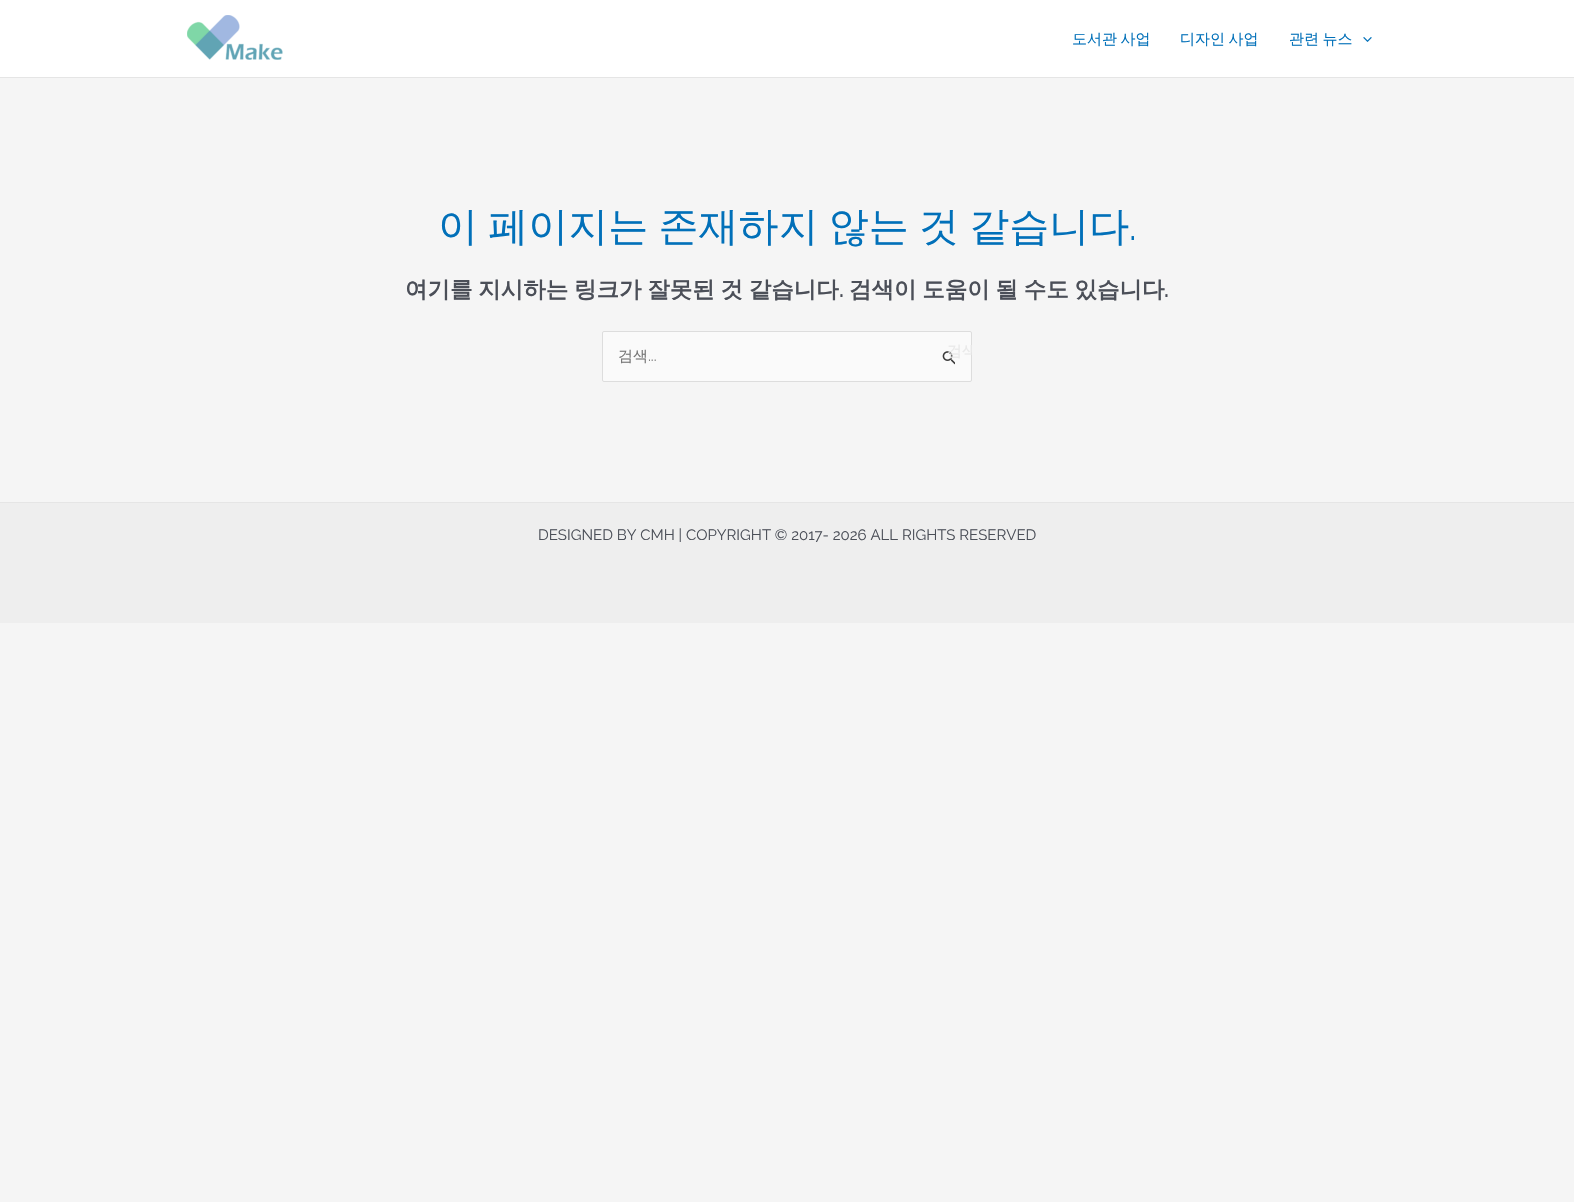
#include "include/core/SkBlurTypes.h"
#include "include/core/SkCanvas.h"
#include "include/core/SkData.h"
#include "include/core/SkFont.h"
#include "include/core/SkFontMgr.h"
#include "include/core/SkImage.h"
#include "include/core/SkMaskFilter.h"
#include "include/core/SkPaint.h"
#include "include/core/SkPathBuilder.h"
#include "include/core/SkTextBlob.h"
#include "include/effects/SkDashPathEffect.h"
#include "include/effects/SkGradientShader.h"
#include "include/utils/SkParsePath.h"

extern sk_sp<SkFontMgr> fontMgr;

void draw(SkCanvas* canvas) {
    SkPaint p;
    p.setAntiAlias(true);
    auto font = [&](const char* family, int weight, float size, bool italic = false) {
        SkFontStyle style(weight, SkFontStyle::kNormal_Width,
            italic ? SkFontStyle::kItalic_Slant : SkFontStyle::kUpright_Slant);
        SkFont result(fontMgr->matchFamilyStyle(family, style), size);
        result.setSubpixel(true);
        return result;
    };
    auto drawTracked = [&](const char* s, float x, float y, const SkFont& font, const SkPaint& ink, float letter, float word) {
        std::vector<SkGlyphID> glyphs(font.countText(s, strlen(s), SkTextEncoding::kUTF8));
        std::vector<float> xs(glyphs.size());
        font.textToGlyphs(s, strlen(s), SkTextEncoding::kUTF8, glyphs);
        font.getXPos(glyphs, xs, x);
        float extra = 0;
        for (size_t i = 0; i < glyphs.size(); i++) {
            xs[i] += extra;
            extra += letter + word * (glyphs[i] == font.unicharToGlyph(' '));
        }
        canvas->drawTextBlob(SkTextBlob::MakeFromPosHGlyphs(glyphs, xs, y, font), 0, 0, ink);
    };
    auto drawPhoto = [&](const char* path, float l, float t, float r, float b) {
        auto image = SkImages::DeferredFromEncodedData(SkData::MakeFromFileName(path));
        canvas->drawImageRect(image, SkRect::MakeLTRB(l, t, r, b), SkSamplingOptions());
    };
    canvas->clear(0xFFF5F5F5);
    p.setColor(0xFFFFFFFF);
    canvas->drawRect(SkRect::MakeLTRB(0, 0, 1574, 77), p);
    p.setColor(0xFFE5E5E5);
    canvas->drawRect(SkRect::MakeLTRB(0, 77, 1574, 78), p);
    drawPhoto("media/1.png", 187, 15, 283, 60);
    auto font1 = font("WenQuanYi Zen Hei", 500, 15);
    p.setColor(0xFF0170B9);
    {
        const struct { const char* s; float x, y; } items[] = {
            {"도서관 사업", 1072, 44},
            {"디자인 사업", 1180, 44},
            {"관련 뉴스", 1289, 44},
        };
        for (auto [s, x, y] : items) {
            drawTracked(s, x, y, font1, p, 0, -1);
        }
    }
    drawPhoto("media/2.png", 1363, 37, 1372, 42);
    auto font2 = font("WenQuanYi Zen Hei", 500, 40);
    drawTracked("이 페이지는 존재하지 않는 것 같습니다", 438, 240, font2, p, 0, -1.75f);
    auto font3 = font("Raleway", 100, 40);
    canvas->drawString(".", 1129, 240, font3, p);
    auto font4 = font("WenQuanYi Zen Hei", 700, 22.5f);
    p.setColor(0xFF4B4F58);
    drawTracked("여기를 지시하는 링크가 잘못된 것 같습니다", 405, 297, font4, p, 0, -1);
    auto font5 = font("Raleway", 700, 22.5f);
    canvas->drawString(".", 839, 297, font5, p);
    drawTracked("검색이 도움이 될 수도 있습니다", 849, 297, font4, p, 0, -1);
    canvas->drawString(".", 1164, 297, font5, p);
    p.setColor(0xFFFAFAFA);
    canvas->drawRoundRect(SkRect::MakeLTRB(602.5f, 331.5f, 971.5f, 381.5f), 1.5f, 1.5f, p);
    p.setStyle(SkPaint::kStroke_Style);
    p.setStrokeWidth(1);
    p.setColor(0xFFDDDDDD);
    canvas->drawRoundRect(SkRect::MakeLTRB(602.5f, 331.5f, 971.5f, 381.5f), 1.5f, 1.5f, p);
    p.setStyle(SkPaint::kFill_Style);
    p.setColor(0xFF757575);
    canvas->drawString("검색", 618, 361, font1, p);
    auto font6 = font("Raleway", 100, 15);
    canvas->drawString("...", 648, 361, font6, p);
    drawPhoto("media/3.png", 942, 351, 955, 365);
    canvas->save();
    canvas->clipPath(SkPathBuilder().moveTo(929, 331).lineTo(970, 331).cubicTo(971, 331, 972, 332, 972, 333).lineTo(972, 370).cubicTo(972, 371, 971, 372, 970, 372).lineTo(929, 372).cubicTo(928, 372, 927, 371, 927, 370).lineTo(927, 333).cubicTo(927, 332, 928, 331, 929, 331).close().detach(), true);
    p.setColor(0xFFE9E9E9);
    canvas->drawString("검색", 947, 356, font1, p);
    canvas->restore();
    p.setColor(0xFFEEEEEE);
    canvas->drawRect(SkRect::MakeLTRB(0, 503, 1574, 623), p);
    p.setColor(0xFFE5E5E5);
    canvas->drawRect(SkRect::MakeLTRB(0, 502, 1574, 503), p);
    p.setColor(0xFF4B4F58);
    canvas->drawString("DESIGNED BY CMH | COPYRIGHT © 2017- 2026 ALL RIGHTS RESERVED", 538, 540, font6, p);
}
